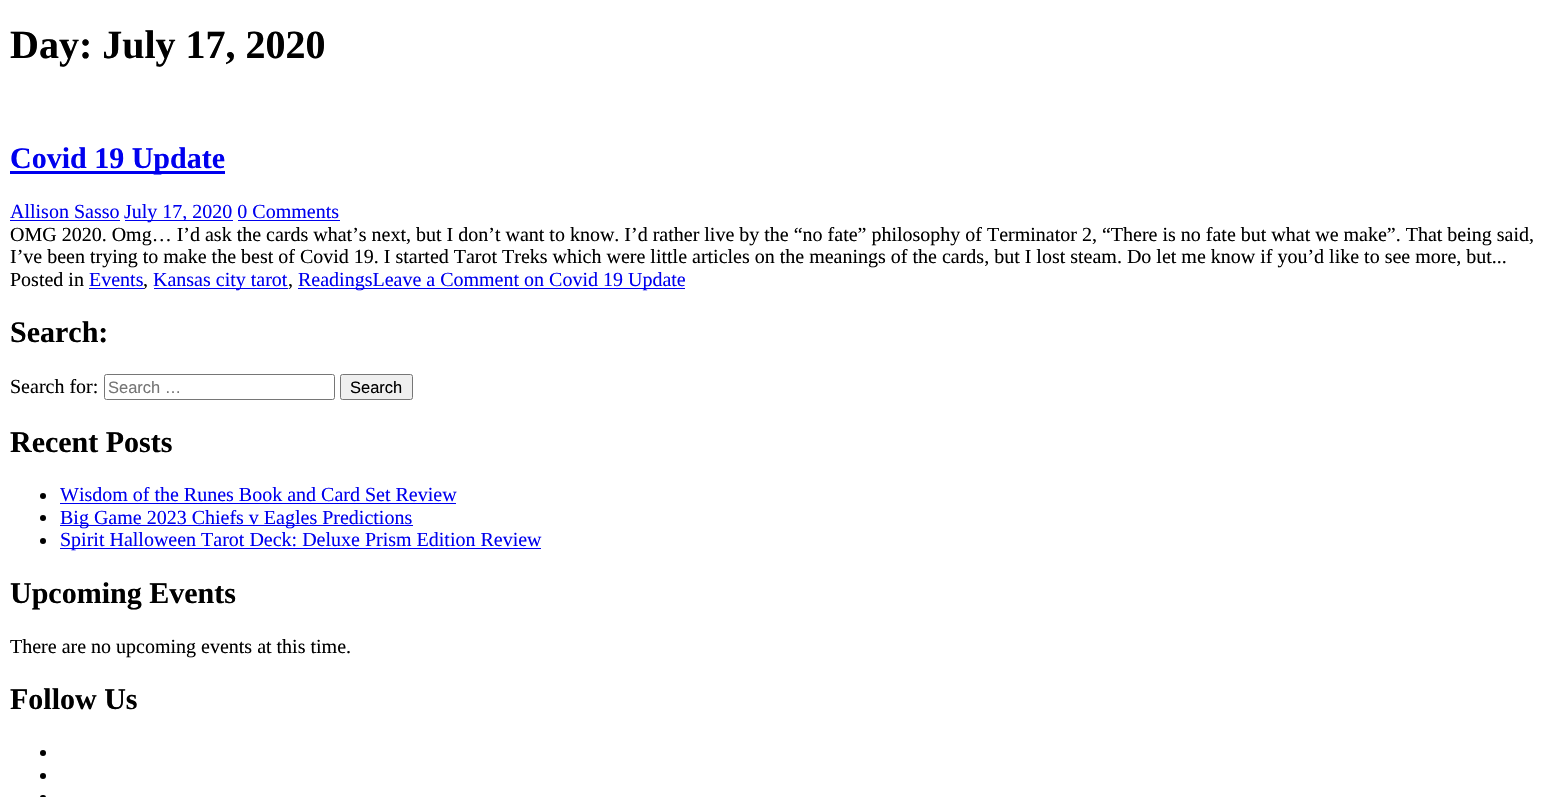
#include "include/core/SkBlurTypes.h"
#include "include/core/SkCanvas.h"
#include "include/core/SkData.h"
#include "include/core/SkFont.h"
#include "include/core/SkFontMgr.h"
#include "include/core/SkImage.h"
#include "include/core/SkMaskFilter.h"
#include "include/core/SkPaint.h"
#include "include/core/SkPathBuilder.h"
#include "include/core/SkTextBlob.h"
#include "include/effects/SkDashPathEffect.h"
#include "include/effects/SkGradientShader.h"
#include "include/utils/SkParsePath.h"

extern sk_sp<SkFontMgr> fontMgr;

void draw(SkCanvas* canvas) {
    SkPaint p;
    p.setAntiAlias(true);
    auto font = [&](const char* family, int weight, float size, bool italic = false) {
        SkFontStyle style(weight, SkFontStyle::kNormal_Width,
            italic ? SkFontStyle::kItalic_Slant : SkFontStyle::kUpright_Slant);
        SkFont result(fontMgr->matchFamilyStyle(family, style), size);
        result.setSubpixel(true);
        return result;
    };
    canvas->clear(0xFFFFFFFF);
    auto font1 = font("Liberation Serif", 700, 40);
    p.setColor(0xFF000000);
    canvas->drawString("Day: July 17, 2020", 10, 58, font1, p);
    p.setColor(0xFF0000EE);
    canvas->drawRect(SkRect::MakeLTRB(10, 171, 225, 174), p);
    auto font2 = font("Liberation Serif", 700, 30);
    canvas->drawString("Covid 19 Update", 10, 168, font2, p);
    auto font3 = font("Liberation Serif", 400, 20);
    canvas->drawString("Allison Sasso", 10, 218, font3, p);
    canvas->drawRect(SkRect::MakeLTRB(10, 220, 120, 221), p);
    canvas->drawRect(SkRect::MakeLTRB(125, 220, 233, 221), p);
    canvas->drawString("July 17, 2020 0 Comments", 124, 218, font3, p);
    canvas->drawRect(SkRect::MakeLTRB(238, 220, 340, 221), p);
    p.setColor(0xFF000000);
    {
        const struct { const char* s; float x, y; } items[] = {
            {"OMG 2020. Omg… I’d ask the cards what’s next, but I don’t want to know. I’d rather live by the “no fate” philosophy of Terminator 2, “There is no fate but what we make”. That being said,", 10, 241},
            {"I’ve been trying to make the best of Covid 19. I started Tarot Treks which were little articles on the meanings of the cards, but I lost steam. Do let me know if you’d like to see more, but...", 10, 263},
            {"Posted in", 10, 286},
        };
        for (auto [s, x, y] : items) {
            canvas->drawString(s, x, y, font3, p);
        }
    }
    p.setColor(0xFF0000EE);
    canvas->drawString("Events", 89, 286, font3, p);
    p.setColor(0xFF000000);
    canvas->drawString(",", 143, 286, font3, p);
    p.setColor(0xFF0000EE);
    canvas->drawRect(SkRect::MakeLTRB(89, 288, 144, 289), p);
    canvas->drawRect(SkRect::MakeLTRB(154, 288, 288, 289), p);
    canvas->drawString("Kansas city tarot", 153, 286, font3, p);
    p.setColor(0xFF000000);
    canvas->drawString(",", 288, 286, font3, p);
    p.setColor(0xFF0000EE);
    canvas->drawRect(SkRect::MakeLTRB(298, 288, 685, 289), p);
    canvas->drawString("ReadingsLeave a Comment on Covid 19 Update", 298, 286, font3, p);
    p.setColor(0xFF000000);
    canvas->drawString("Search:", 10, 342, font2, p);
    canvas->drawString("Search for:", 10, 393, font3, p);
    p.setStyle(SkPaint::kStroke_Style);
    p.setStrokeWidth(1);
    p.setColor(0xFF767676);
    canvas->drawRoundRect(SkRect::MakeLTRB(104.5f, 374.5f, 334.5f, 399.5f), 2, 2, p);
    auto font4 = font("Liberation Sans", 400, 16.5f);
    p.setStyle(SkPaint::kFill_Style);
    p.setColor(0xFF757575);
    canvas->drawString("Search …", 108, 393, font4, p);
    p.setColor(0xFFEFEFEF);
    canvas->drawRoundRect(SkRect::MakeLTRB(340.5f, 374.5f, 412.5f, 399.5f), 2, 2, p);
    p.setStyle(SkPaint::kStroke_Style);
    p.setColor(0xFF767676);
    canvas->drawRoundRect(SkRect::MakeLTRB(340.5f, 374.5f, 412.5f, 399.5f), 2, 2, p);
    p.setStyle(SkPaint::kFill_Style);
    p.setColor(0xFF000000);
    canvas->drawString("Search", 350, 393, font4, p);
    canvas->drawString("Recent Posts", 10, 452, font2, p);
    canvas->drawCircle(43, 496, 3, p);
    p.setColor(0xFF0000EE);
    canvas->drawString("Wisdom of the Runes Book and Card Set Review", 60, 501, font3, p);
    canvas->drawRect(SkRect::MakeLTRB(60, 503, 456, 504), p);
    p.setColor(0xFF000000);
    canvas->drawCircle(43, 518, 3, p);
    p.setColor(0xFF0000EE);
    canvas->drawRect(SkRect::MakeLTRB(60, 525, 413, 526), p);
    canvas->drawString("Big Game 2023 Chiefs v Eagles Predictions", 60, 524, font3, p);
    p.setColor(0xFF000000);
    canvas->drawCircle(43, 541, 3, p);
    p.setColor(0xFF0000EE);
    canvas->drawRect(SkRect::MakeLTRB(60, 548, 541, 549), p);
    canvas->drawString("Spirit Halloween Tarot Deck: Deluxe Prism Edition Review", 60, 546, font3, p);
    p.setColor(0xFF000000);
    canvas->drawString("Upcoming Events", 10, 603, font2, p);
    canvas->drawString("There are no upcoming events at this time.", 10, 653, font3, p);
    canvas->drawString("Follow Us", 10, 709, font2, p);
    canvas->drawCircle(43, 753, 3, p);
    canvas->drawCircle(43, 776, 3, p);
    canvas->drawRoundRect(SkRect::MakeLTRB(40, 795, 46, 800), 3, 3, p);
}
